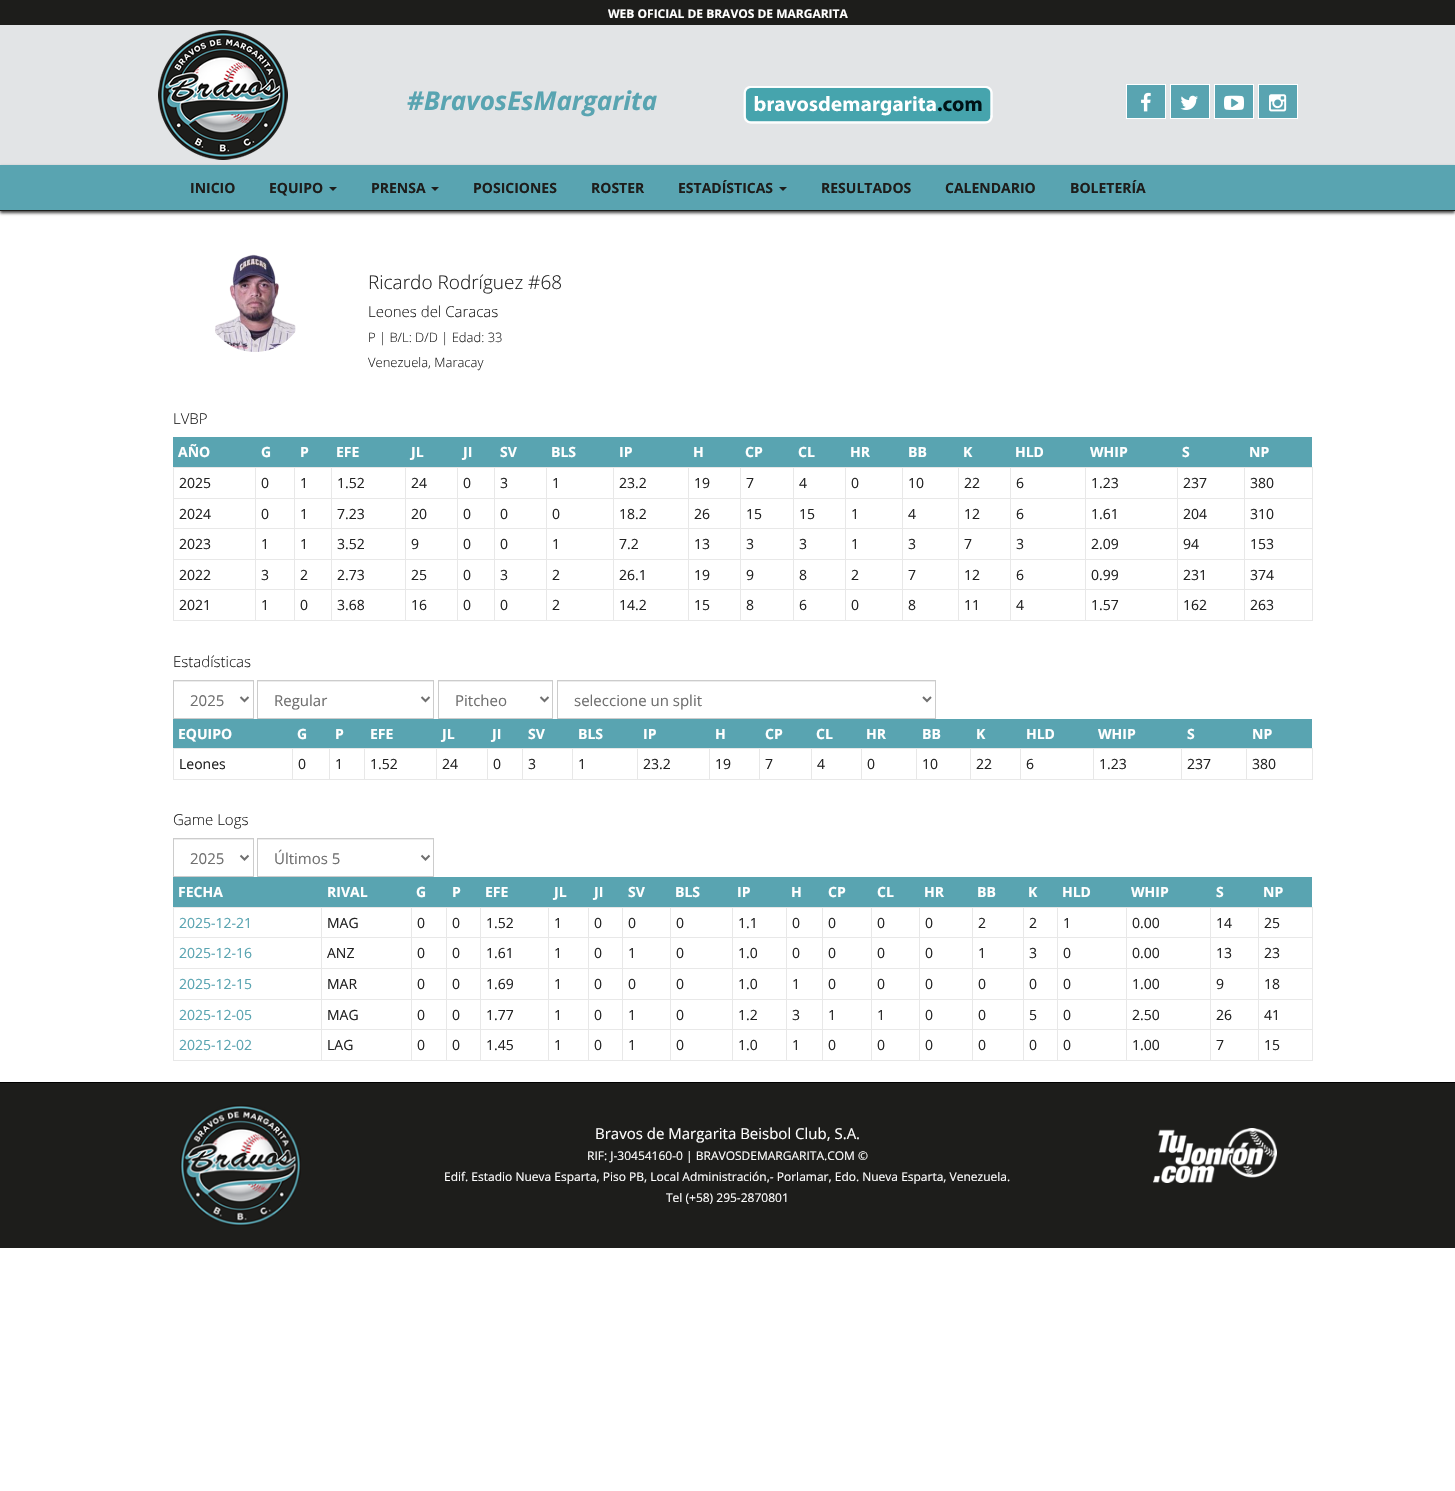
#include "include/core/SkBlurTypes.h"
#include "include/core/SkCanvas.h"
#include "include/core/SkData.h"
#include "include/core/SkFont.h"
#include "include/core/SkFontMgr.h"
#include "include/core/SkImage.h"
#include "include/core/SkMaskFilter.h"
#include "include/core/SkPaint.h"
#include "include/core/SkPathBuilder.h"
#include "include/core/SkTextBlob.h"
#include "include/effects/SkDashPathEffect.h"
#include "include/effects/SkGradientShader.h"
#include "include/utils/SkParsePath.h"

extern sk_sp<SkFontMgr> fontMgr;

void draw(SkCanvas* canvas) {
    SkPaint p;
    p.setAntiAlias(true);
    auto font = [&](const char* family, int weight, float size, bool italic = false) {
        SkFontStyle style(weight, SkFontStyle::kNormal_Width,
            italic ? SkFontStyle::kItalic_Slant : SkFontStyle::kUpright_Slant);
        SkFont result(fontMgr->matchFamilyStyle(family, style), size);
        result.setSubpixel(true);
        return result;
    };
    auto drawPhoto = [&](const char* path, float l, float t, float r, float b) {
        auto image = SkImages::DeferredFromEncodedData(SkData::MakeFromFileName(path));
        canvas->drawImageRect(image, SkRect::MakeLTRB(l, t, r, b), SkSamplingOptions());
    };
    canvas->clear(0xFFFFFFFF);
    p.setColor(0xFFE2E4E6);
    canvas->drawRect(SkRect::MakeLTRB(0, 25, 1455, 165), p);
    p.setColor(0xFF1D1D1B);
    canvas->drawRect(SkRect::MakeLTRB(0, 0, 1455, 25), p);
    auto font1 = font("Open Sans", 700, 12);
    p.setColor(0xFFFFFFFF);
    canvas->drawString("WEB OFICIAL DE BRAVOS DE MARGARITA", 608, 18, font1, p);
    drawPhoto("media/1.png", 158, 30, 288, 160);
    auto font2 = font("Open Sans", 700, 26, true);
    p.setColor(0xFF59A4B1);
    canvas->drawString("#BravosEsMargarita", 407, 110, font2, p);
    drawPhoto("media/2.png", 743, 86, 993, 124);
    canvas->drawRect(SkRect::MakeLTRB(1126.5f, 84.5f, 1165.5f, 118.5f), p);
    p.setStyle(SkPaint::kStroke_Style);
    p.setStrokeWidth(1);
    p.setColor(0xFFFFFFFF);
    canvas->drawRect(SkRect::MakeLTRB(1126.5f, 84.5f, 1165.5f, 118.5f), p);
    drawPhoto("media/3.png", 1141, 92, 1151, 112);
    p.setStyle(SkPaint::kFill_Style);
    p.setColor(0xFF59A4B1);
    canvas->drawRect(SkRect::MakeLTRB(1170.5f, 84.5f, 1209.5f, 118.5f), p);
    p.setStyle(SkPaint::kStroke_Style);
    p.setColor(0xFFFFFFFF);
    canvas->drawRect(SkRect::MakeLTRB(1170.5f, 84.5f, 1209.5f, 118.5f), p);
    drawPhoto("media/4.png", 1180, 95, 1198, 110);
    p.setStyle(SkPaint::kFill_Style);
    p.setColor(0xFF59A4B1);
    canvas->drawRect(SkRect::MakeLTRB(1214.5f, 84.5f, 1253.5f, 118.5f), p);
    p.setStyle(SkPaint::kStroke_Style);
    p.setColor(0xFFFFFFFF);
    canvas->drawRect(SkRect::MakeLTRB(1214.5f, 84.5f, 1253.5f, 118.5f), p);
    drawPhoto("media/5.png", 1224, 95, 1244, 110);
    p.setStyle(SkPaint::kFill_Style);
    p.setColor(0xFF59A4B1);
    canvas->drawRect(SkRect::MakeLTRB(1258.5f, 84.5f, 1297.5f, 118.5f), p);
    p.setStyle(SkPaint::kStroke_Style);
    p.setColor(0xFFFFFFFF);
    canvas->drawRect(SkRect::MakeLTRB(1258.5f, 84.5f, 1297.5f, 118.5f), p);
    drawPhoto("media/6.png", 1269, 94, 1287, 112);
    p.setStyle(SkPaint::kFill_Style);
    p.setColor(0xBF000000);
    p.setMaskFilter(SkMaskFilter::MakeBlur(kNormal_SkBlurStyle, 1.5f));
    canvas->drawRect(SkRect::MakeLTRB(0, 167, 1455, 213), p);
    p.setMaskFilter(nullptr);
    p.setColor(0xFF59A4B1);
    canvas->drawRect(SkRect::MakeLTRB(0, 165, 1455, 210), p);
    p.setColor(0xFF1D1D1B);
    canvas->drawRect(SkRect::MakeLTRB(0, 210, 1455, 211), p);
    auto font3 = font("Open Sans", 700, 14);
    canvas->drawString("INICIO", 190, 193, font3, p);
    canvas->drawString("EQUIPO", 269, 193, font3, p);
    canvas->drawPath(SkPathBuilder().moveTo(329, 187).lineTo(337, 187).lineTo(333, 191).close().detach(), p);
    canvas->drawString("PRENSA", 371, 193, font3, p);
    canvas->drawPath(SkPathBuilder().moveTo(431, 187).lineTo(439, 187).lineTo(435, 191).close().detach(), p);
    {
        const struct { const char* s; float x, y; } items[] = {
            {"POSICIONES", 473, 193},
            {"ROSTER", 591, 193},
            {"ESTADÍSTICAS", 678, 193},
        };
        for (auto [s, x, y] : items) {
            canvas->drawString(s, x, y, font3, p);
        }
    }
    canvas->drawPath(SkPathBuilder().moveTo(779, 187).lineTo(787, 187).lineTo(783, 191).close().detach(), p);
    {
        const struct { const char* s; float x, y; } items[] = {
            {"RESULTADOS", 821, 193},
            {"CALENDARIO", 945, 193},
            {"BOLETERÍA", 1070, 193},
        };
        for (auto [s, x, y] : items) {
            canvas->drawString(s, x, y, font3, p);
        }
    }
    drawPhoto("media/7.png", 215, 254, 296, 352);
    auto font4 = font("Open Sans", 300, 19);
    p.setColor(0xFF222222);
    canvas->drawString("Ricardo Rodríguez #68", 368, 289, font4, p);
    auto font5 = font("Open Sans", 300, 15);
    canvas->drawString("Leones del Caracas", 368, 317, font5, p);
    auto font6 = font("Open Sans", 300, 13);
    canvas->drawString("P | B/L: D/D | Edad: 33", 368, 342, font6, p);
    canvas->drawString("Venezuela, Maracay", 368, 367, font6, p);
    canvas->drawString("LVBP", 173, 424, font5, p);
    p.setColor(0xFF59A4B1);
    canvas->drawRect(SkRect::MakeLTRB(173, 437, 1312, 467), p);
    p.setColor(0xFFFFFFFF);
    {
        const struct { const char* s; float x, y; } items[] = {
            {"AÑO", 178, 457},
            {"G", 261, 457},
            {"P", 300, 457},
            {"EFE", 336, 457},
            {"JL", 411, 457},
            {"JI", 463, 457},
            {"SV", 500, 457},
            {"BLS", 551, 457},
            {"IP", 619, 457},
            {"H", 693, 457},
            {"CP", 745, 457},
            {"CL", 798, 457},
            {"HR", 850, 457},
            {"BB", 908, 457},
            {"K", 963, 457},
            {"HLD", 1015, 457},
            {"WHIP", 1090, 457},
            {"S", 1182, 457},
            {"NP", 1249, 457},
        };
        for (auto [s, x, y] : items) {
            canvas->drawString(s, x, y, font3, p);
        }
    }
    {
        const struct { float l, t, r, b; SkColor color; } items[] = {
            {1244, 467, 1313, 468, 0xFFE8E8E8},
            {1244, 498, 1313, 499, 0xFFE8E8E8},
            {1244, 528, 1313, 529, 0xFFE8E8E8},
            {1244, 559, 1313, 560, 0xFFE8E8E8},
            {1244, 589, 1313, 590, 0xFFE8E8E8},
            {1312, 589, 1313, 621, 0xFFE8E8E8},
            {1244, 620, 1313, 621, 0xFFE8E8E8},
            {1244, 589, 1245, 621, 0xFFE8E8E8},
            {1177, 589, 1245, 590, 0xFFE8E8E8},
            {1244, 559, 1245, 590, 0xFFE8E8E8},
            {1177, 559, 1245, 560, 0xFFE8E8E8},
            {1244, 528, 1245, 560, 0xFFE8E8E8},
            {1177, 528, 1245, 529, 0xFFE8E8E8},
            {1244, 498, 1245, 529, 0xFFE8E8E8},
            {1177, 498, 1245, 499, 0xFFE8E8E8},
            {1244, 467, 1245, 499, 0xFFE8E8E8},
            {1177, 467, 1245, 468, 0xFFE8E8E8},
            {1177, 620, 1245, 621, 0xFFE8E8E8},
            {1177, 589, 1178, 621, 0xFFE8E8E8},
            {1085, 589, 1178, 590, 0xFFE8E8E8},
            {1177, 559, 1178, 590, 0xFFE8E8E8},
            {1085, 559, 1178, 560, 0xFFE8E8E8},
            {1177, 528, 1178, 560, 0xFFE8E8E8},
            {1085, 528, 1178, 529, 0xFFE8E8E8},
            {1177, 498, 1178, 529, 0xFFE8E8E8},
            {1085, 498, 1178, 499, 0xFFE8E8E8},
            {1177, 467, 1178, 499, 0xFFE8E8E8},
            {1085, 467, 1178, 468, 0xFFE8E8E8},
            {1085, 620, 1178, 621, 0xFFE8E8E8},
            {1085, 589, 1086, 621, 0xFFE8E8E8},
            {1010, 589, 1086, 590, 0xFFE8E8E8},
            {1085, 559, 1086, 590, 0xFFE8E8E8},
            {1010, 559, 1086, 560, 0xFFE8E8E8},
            {1085, 528, 1086, 560, 0xFFE8E8E8},
            {1010, 528, 1086, 529, 0xFFE8E8E8},
            {1085, 498, 1086, 529, 0xFFE8E8E8},
            {1010, 498, 1086, 499, 0xFFE8E8E8},
            {1085, 467, 1086, 499, 0xFFE8E8E8},
            {1010, 467, 1086, 468, 0xFFE8E8E8},
            {1010, 620, 1086, 621, 0xFFE8E8E8},
            {1010, 589, 1011, 621, 0xFFE8E8E8},
            {958, 589, 1011, 590, 0xFFE8E8E8},
            {1010, 559, 1011, 590, 0xFFE8E8E8},
            {958, 559, 1011, 560, 0xFFE8E8E8},
            {1010, 528, 1011, 560, 0xFFE8E8E8},
            {958, 528, 1011, 529, 0xFFE8E8E8},
            {1010, 498, 1011, 529, 0xFFE8E8E8},
            {958, 498, 1011, 499, 0xFFE8E8E8},
            {1010, 467, 1011, 499, 0xFFE8E8E8},
            {958, 467, 1011, 468, 0xFFE8E8E8},
            {958, 620, 1011, 621, 0xFFE8E8E8},
            {958, 589, 959, 621, 0xFFE8E8E8},
            {902, 589, 959, 590, 0xFFE8E8E8},
            {958, 559, 959, 590, 0xFFE8E8E8},
            {902, 559, 959, 560, 0xFFE8E8E8},
            {958, 528, 959, 560, 0xFFE8E8E8},
            {902, 528, 959, 529, 0xFFE8E8E8},
            {958, 498, 959, 529, 0xFFE8E8E8},
            {902, 498, 959, 499, 0xFFE8E8E8},
            {958, 467, 959, 499, 0xFFE8E8E8},
            {902, 467, 959, 468, 0xFFE8E8E8},
            {902, 620, 959, 621, 0xFFE8E8E8},
            {902, 589, 903, 621, 0xFFE8E8E8},
            {845, 589, 903, 590, 0xFFE8E8E8},
            {902, 559, 903, 590, 0xFFE8E8E8},
            {845, 559, 903, 560, 0xFFE8E8E8},
            {902, 528, 903, 560, 0xFFE8E8E8},
            {845, 528, 903, 529, 0xFFE8E8E8},
            {902, 498, 903, 529, 0xFFE8E8E8},
            {845, 498, 903, 499, 0xFFE8E8E8},
            {902, 467, 903, 499, 0xFFE8E8E8},
            {845, 467, 903, 468, 0xFFE8E8E8},
            {845, 620, 903, 621, 0xFFE8E8E8},
            {845, 589, 846, 621, 0xFFE8E8E8},
            {793, 589, 846, 590, 0xFFE8E8E8},
            {845, 559, 846, 590, 0xFFE8E8E8},
            {793, 559, 846, 560, 0xFFE8E8E8},
            {845, 528, 846, 560, 0xFFE8E8E8},
            {793, 528, 846, 529, 0xFFE8E8E8},
            {845, 498, 846, 529, 0xFFE8E8E8},
            {793, 498, 846, 499, 0xFFE8E8E8},
            {845, 467, 846, 499, 0xFFE8E8E8},
            {793, 467, 846, 468, 0xFFE8E8E8},
            {793, 620, 846, 621, 0xFFE8E8E8},
            {793, 589, 794, 621, 0xFFE8E8E8},
            {740, 589, 794, 590, 0xFFE8E8E8},
            {793, 559, 794, 590, 0xFFE8E8E8},
            {740, 559, 794, 560, 0xFFE8E8E8},
            {793, 528, 794, 560, 0xFFE8E8E8},
            {740, 528, 794, 529, 0xFFE8E8E8},
            {793, 498, 794, 529, 0xFFE8E8E8},
            {740, 498, 794, 499, 0xFFE8E8E8},
            {793, 467, 794, 499, 0xFFE8E8E8},
            {740, 467, 794, 468, 0xFFE8E8E8},
            {740, 620, 794, 621, 0xFFE8E8E8},
            {740, 589, 741, 621, 0xFFE8E8E8},
            {688, 589, 741, 590, 0xFFE8E8E8},
            {740, 559, 741, 590, 0xFFE8E8E8},
            {688, 559, 741, 560, 0xFFE8E8E8},
            {740, 528, 741, 560, 0xFFE8E8E8},
            {688, 528, 741, 529, 0xFFE8E8E8},
            {740, 498, 741, 529, 0xFFE8E8E8},
            {688, 498, 741, 499, 0xFFE8E8E8},
            {740, 467, 741, 499, 0xFFE8E8E8},
            {688, 467, 741, 468, 0xFFE8E8E8},
            {688, 620, 741, 621, 0xFFE8E8E8},
            {688, 589, 689, 621, 0xFFE8E8E8},
            {613, 589, 689, 590, 0xFFE8E8E8},
            {688, 559, 689, 590, 0xFFE8E8E8},
            {613, 559, 689, 560, 0xFFE8E8E8},
            {688, 528, 689, 560, 0xFFE8E8E8},
            {613, 528, 689, 529, 0xFFE8E8E8},
            {688, 498, 689, 529, 0xFFE8E8E8},
            {613, 498, 689, 499, 0xFFE8E8E8},
            {688, 467, 689, 499, 0xFFE8E8E8},
            {613, 467, 689, 468, 0xFFE8E8E8},
            {613, 620, 689, 621, 0xFFE8E8E8},
            {613, 589, 614, 621, 0xFFE8E8E8},
            {546, 589, 614, 590, 0xFFE8E8E8},
            {613, 559, 614, 590, 0xFFE8E8E8},
            {546, 559, 614, 560, 0xFFE8E8E8},
            {613, 528, 614, 560, 0xFFE8E8E8},
            {546, 528, 614, 529, 0xFFE8E8E8},
            {613, 498, 614, 529, 0xFFE8E8E8},
            {546, 498, 614, 499, 0xFFE8E8E8},
            {613, 467, 614, 499, 0xFFE8E8E8},
            {546, 467, 614, 468, 0xFFE8E8E8},
            {546, 620, 614, 621, 0xFFE8E8E8},
            {546, 589, 547, 621, 0xFFE8E8E8},
            {494, 589, 547, 590, 0xFFE8E8E8},
            {546, 559, 547, 590, 0xFFE8E8E8},
            {494, 559, 547, 560, 0xFFE8E8E8},
            {546, 528, 547, 560, 0xFFE8E8E8},
            {494, 528, 547, 529, 0xFFE8E8E8},
            {546, 498, 547, 529, 0xFFE8E8E8},
            {494, 498, 547, 499, 0xFFE8E8E8},
            {546, 467, 547, 499, 0xFFE8E8E8},
            {494, 467, 547, 468, 0xFFE8E8E8},
            {494, 620, 547, 621, 0xFFE8E8E8},
            {494, 589, 495, 621, 0xFFE8E8E8},
            {457, 589, 495, 590, 0xFFE8E8E8},
            {494, 559, 495, 590, 0xFFE8E8E8},
            {457, 559, 495, 560, 0xFFE8E8E8},
            {494, 528, 495, 560, 0xFFE8E8E8},
            {457, 528, 495, 529, 0xFFE8E8E8},
            {494, 498, 495, 529, 0xFFE8E8E8},
            {457, 498, 495, 499, 0xFFE8E8E8},
            {494, 467, 495, 499, 0xFFE8E8E8},
            {457, 467, 495, 468, 0xFFE8E8E8},
            {457, 620, 495, 621, 0xFFE8E8E8},
            {457, 589, 458, 621, 0xFFE8E8E8},
            {405, 589, 458, 590, 0xFFE8E8E8},
            {457, 559, 458, 590, 0xFFE8E8E8},
            {405, 559, 458, 560, 0xFFE8E8E8},
            {457, 528, 458, 560, 0xFFE8E8E8},
            {405, 528, 458, 529, 0xFFE8E8E8},
            {457, 498, 458, 529, 0xFFE8E8E8},
            {405, 498, 458, 499, 0xFFE8E8E8},
            {457, 467, 458, 499, 0xFFE8E8E8},
            {405, 467, 458, 468, 0xFFE8E8E8},
            {405, 620, 458, 621, 0xFFE8E8E8},
            {405, 589, 406, 621, 0xFFE8E8E8},
            {331, 589, 406, 590, 0xFFE8E8E8},
            {405, 559, 406, 590, 0xFFE8E8E8},
            {331, 559, 406, 560, 0xFFE8E8E8},
            {405, 528, 406, 560, 0xFFE8E8E8},
            {331, 528, 406, 529, 0xFFE8E8E8},
            {405, 498, 406, 529, 0xFFE8E8E8},
            {331, 498, 406, 499, 0xFFE8E8E8},
            {405, 467, 406, 499, 0xFFE8E8E8},
            {331, 467, 406, 468, 0xFFE8E8E8},
            {331, 620, 406, 621, 0xFFE8E8E8},
            {331, 589, 332, 621, 0xFFE8E8E8},
            {294, 589, 332, 590, 0xFFE8E8E8},
            {331, 559, 332, 590, 0xFFE8E8E8},
            {294, 559, 332, 560, 0xFFE8E8E8},
            {331, 528, 332, 560, 0xFFE8E8E8},
            {294, 528, 332, 529, 0xFFE8E8E8},
            {331, 498, 332, 529, 0xFFE8E8E8},
            {294, 498, 332, 499, 0xFFE8E8E8},
            {331, 467, 332, 499, 0xFFE8E8E8},
            {294, 467, 332, 468, 0xFFE8E8E8},
            {294, 620, 332, 621, 0xFFE8E8E8},
            {294, 589, 295, 621, 0xFFE8E8E8},
            {255, 589, 295, 590, 0xFFE8E8E8},
            {294, 559, 295, 590, 0xFFE8E8E8},
            {255, 559, 295, 560, 0xFFE8E8E8},
            {294, 528, 295, 560, 0xFFE8E8E8},
            {255, 528, 295, 529, 0xFFE8E8E8},
            {294, 498, 295, 529, 0xFFE8E8E8},
            {255, 498, 295, 499, 0xFFE8E8E8},
            {294, 467, 295, 499, 0xFFE8E8E8},
            {255, 467, 295, 468, 0xFFE8E8E8},
            {255, 620, 295, 621, 0xFFE8E8E8},
            {255, 589, 256, 621, 0xFFE8E8E8},
            {173, 589, 256, 590, 0xFFE8E8E8},
            {255, 559, 256, 590, 0xFFE8E8E8},
            {173, 559, 256, 560, 0xFFE8E8E8},
            {255, 528, 256, 560, 0xFFE8E8E8},
            {173, 528, 256, 529, 0xFFE8E8E8},
            {255, 498, 256, 529, 0xFFE8E8E8},
            {173, 498, 256, 499, 0xFFE8E8E8},
            {255, 467, 256, 499, 0xFFE8E8E8},
            {173, 467, 256, 468, 0xFFE8E8E8},
            {173, 620, 256, 621, 0xFFE8E8E8},
            {173, 589, 174, 621, 0xFFE8E8E8},
            {173, 559, 174, 590, 0xFFE8E8E8},
            {173, 528, 174, 560, 0xFFE8E8E8},
            {173, 498, 174, 529, 0xFFE8E8E8},
            {173, 467, 174, 499, 0xFFE8E8E8},
        };
        for (auto [l, t, r, b, color] : items) {
            p.setColor(color);
            canvas->drawRect(SkRect::MakeLTRB(l, t, r, b), p);
        }
    }
    auto font7 = font("Open Sans", 400, 14);
    p.setColor(0xFF222222);
    {
        const struct { const char* s; float x, y; } items[] = {
            {"2025", 179, 488},
            {"0", 261, 488},
            {"1", 300, 488},
            {"1.52", 337, 488},
            {"24", 411, 488},
            {"0", 463, 488},
            {"3", 500, 488},
            {"1", 552, 488},
            {"23.2", 619, 488},
            {"19", 694, 488},
            {"7", 746, 488},
            {"4", 799, 488},
            {"0", 851, 488},
            {"10", 908, 488},
            {"22", 964, 488},
            {"6", 1016, 488},
            {"1.23", 1091, 488},
            {"237", 1183, 488},
        };
        for (auto [s, x, y] : items) {
            canvas->drawString(s, x, y, font7, p);
        }
    }
    {
        const struct { float l, t, r, b; SkColor color; } items[] = {
            {1312, 559, 1313, 590, 0xFFE8E8E8},
            {1312, 528, 1313, 560, 0xFFE8E8E8},
            {1312, 498, 1313, 529, 0xFFE8E8E8},
            {1312, 467, 1313, 499, 0xFFE8E8E8},
        };
        for (auto [l, t, r, b, color] : items) {
            p.setColor(color);
            canvas->drawRect(SkRect::MakeLTRB(l, t, r, b), p);
        }
    }
    p.setColor(0xFF222222);
    {
        const struct { const char* s; float x, y; } items[] = {
            {"380", 1250, 488},
            {"2024", 179, 519},
            {"0", 261, 519},
            {"1", 300, 519},
            {"7.23", 337, 519},
            {"20", 411, 519},
            {"0", 463, 519},
            {"0", 500, 519},
            {"0", 552, 519},
            {"18.2", 619, 519},
            {"26", 694, 519},
            {"15", 746, 519},
            {"15", 799, 519},
            {"1", 851, 519},
            {"4", 908, 519},
            {"12", 964, 519},
            {"6", 1016, 519},
            {"1.61", 1091, 519},
            {"204", 1183, 519},
            {"310", 1250, 519},
            {"2023", 179, 549},
            {"1", 261, 549},
            {"1", 300, 549},
            {"3.52", 337, 549},
            {"9", 411, 549},
            {"0", 463, 549},
            {"0", 500, 549},
            {"1", 552, 549},
            {"7.2", 619, 549},
            {"13", 694, 549},
            {"3", 746, 549},
            {"3", 799, 549},
            {"1", 851, 549},
            {"3", 908, 549},
            {"7", 964, 549},
            {"3", 1016, 549},
            {"2.09", 1091, 549},
            {"94", 1183, 549},
            {"153", 1250, 549},
            {"2022", 179, 580},
            {"3", 261, 580},
            {"2", 300, 580},
            {"2.73", 337, 580},
            {"25", 411, 580},
            {"0", 463, 580},
            {"3", 500, 580},
            {"2", 552, 580},
            {"26.1", 619, 580},
            {"19", 694, 580},
            {"9", 746, 580},
            {"8", 799, 580},
            {"2", 851, 580},
            {"7", 908, 580},
            {"12", 964, 580},
            {"6", 1016, 580},
            {"0.99", 1091, 580},
            {"231", 1183, 580},
            {"374", 1250, 580},
            {"2021", 179, 610},
            {"1", 261, 610},
            {"0", 300, 610},
            {"3.68", 337, 610},
            {"16", 411, 610},
            {"0", 463, 610},
            {"0", 500, 610},
            {"2", 552, 610},
            {"14.2", 619, 610},
            {"15", 694, 610},
            {"8", 746, 610},
            {"6", 799, 610},
            {"0", 851, 610},
            {"8", 908, 610},
            {"11", 964, 610},
            {"4", 1016, 610},
            {"1.57", 1091, 610},
            {"162", 1183, 610},
            {"263", 1250, 610},
        };
        for (auto [s, x, y] : items) {
            canvas->drawString(s, x, y, font7, p);
        }
    }
    canvas->drawString("Estadísticas", 173, 667, font5, p);
    p.setColor(0xFFECECEC);
    canvas->drawRect(SkRect::MakeLTRB(174, 681, 253, 682), p);
    p.setStyle(SkPaint::kStroke_Style);
    p.setColor(0xFFCCCCCC);
    canvas->drawRect(SkRect::MakeLTRB(173.5f, 680.5f, 253.5f, 718.5f), p);
    p.setStrokeWidth(2);
    p.setColor(0xFF6F6F6F);
    canvas->drawPath(SkPathBuilder().moveTo(240.5f, 697).lineTo(244.5f, 701).lineTo(248.5f, 697).detach(), p);
    auto font8 = font("Open Sans", 400, 15);
    p.setStyle(SkPaint::kFill_Style);
    canvas->drawString("2025", 190, 706, font8, p);
    p.setColor(0xFFECECEC);
    canvas->drawRect(SkRect::MakeLTRB(258, 681, 433, 682), p);
    p.setStyle(SkPaint::kStroke_Style);
    p.setStrokeWidth(1);
    p.setColor(0xFFCCCCCC);
    canvas->drawRect(SkRect::MakeLTRB(257.5f, 680.5f, 433.5f, 718.5f), p);
    p.setStrokeWidth(2);
    p.setColor(0xFF6F6F6F);
    canvas->drawPath(SkPathBuilder().moveTo(421.5f, 697).lineTo(425.5f, 701).lineTo(429.5f, 697).detach(), p);
    p.setStyle(SkPaint::kFill_Style);
    canvas->drawString("Regular", 274, 706, font8, p);
    p.setColor(0xFFECECEC);
    canvas->drawRect(SkRect::MakeLTRB(439, 681, 552, 682), p);
    p.setStyle(SkPaint::kStroke_Style);
    p.setStrokeWidth(1);
    p.setColor(0xFFCCCCCC);
    canvas->drawRect(SkRect::MakeLTRB(438.5f, 680.5f, 552.5f, 718.5f), p);
    p.setStrokeWidth(2);
    p.setColor(0xFF6F6F6F);
    canvas->drawPath(SkPathBuilder().moveTo(540.5f, 697).lineTo(544.5f, 701).lineTo(548.5f, 697).detach(), p);
    p.setStyle(SkPaint::kFill_Style);
    canvas->drawString("Pitcheo", 455, 706, font8, p);
    p.setColor(0xFFECECEC);
    canvas->drawRect(SkRect::MakeLTRB(558, 681, 935, 682), p);
    p.setStyle(SkPaint::kStroke_Style);
    p.setStrokeWidth(1);
    p.setColor(0xFFCCCCCC);
    canvas->drawRect(SkRect::MakeLTRB(557.5f, 680.5f, 935.5f, 718.5f), p);
    p.setStrokeWidth(2);
    p.setColor(0xFF6F6F6F);
    canvas->drawPath(SkPathBuilder().moveTo(923, 697).lineTo(927, 701).lineTo(931, 697).detach(), p);
    p.setStyle(SkPaint::kFill_Style);
    canvas->drawString("seleccione un split", 574, 706, font8, p);
    p.setColor(0xFF59A4B1);
    canvas->drawRect(SkRect::MakeLTRB(173, 719, 1312, 748), p);
    p.setColor(0xFFFFFFFF);
    {
        const struct { const char* s; float x, y; } items[] = {
            {"EQUIPO", 178, 739},
            {"G", 297, 739},
            {"P", 335, 739},
            {"EFE", 370, 739},
            {"JL", 442, 739},
            {"JI", 492, 739},
            {"SV", 528, 739},
            {"BLS", 578, 739},
            {"IP", 643, 739},
            {"H", 715, 739},
            {"CP", 765, 739},
            {"CL", 816, 739},
            {"HR", 866, 739},
            {"BB", 922, 739},
            {"K", 976, 739},
            {"HLD", 1026, 739},
            {"WHIP", 1098, 739},
            {"S", 1187, 739},
            {"NP", 1252, 739},
        };
        for (auto [s, x, y] : items) {
            canvas->drawString(s, x, y, font3, p);
        }
    }
    {
        const struct { float l, t, r, b; SkColor color; } items[] = {
            {1246, 748, 1313, 749, 0xFFE8E8E8},
            {1312, 748, 1313, 780, 0xFFE8E8E8},
            {1246, 779, 1313, 780, 0xFFE8E8E8},
            {1246, 748, 1247, 780, 0xFFE8E8E8},
            {1181, 748, 1247, 749, 0xFFE8E8E8},
            {1181, 779, 1247, 780, 0xFFE8E8E8},
            {1181, 748, 1182, 780, 0xFFE8E8E8},
            {1093, 748, 1182, 749, 0xFFE8E8E8},
            {1093, 779, 1182, 780, 0xFFE8E8E8},
            {1093, 748, 1094, 780, 0xFFE8E8E8},
            {1020, 748, 1094, 749, 0xFFE8E8E8},
            {1020, 779, 1094, 780, 0xFFE8E8E8},
            {1020, 748, 1021, 780, 0xFFE8E8E8},
            {970, 748, 1021, 749, 0xFFE8E8E8},
            {970, 779, 1021, 780, 0xFFE8E8E8},
            {970, 748, 971, 780, 0xFFE8E8E8},
            {916, 748, 971, 749, 0xFFE8E8E8},
            {916, 779, 971, 780, 0xFFE8E8E8},
            {916, 748, 917, 780, 0xFFE8E8E8},
            {861, 748, 917, 749, 0xFFE8E8E8},
            {861, 779, 917, 780, 0xFFE8E8E8},
            {861, 748, 862, 780, 0xFFE8E8E8},
            {811, 748, 862, 749, 0xFFE8E8E8},
            {811, 779, 862, 780, 0xFFE8E8E8},
            {811, 748, 812, 780, 0xFFE8E8E8},
            {759, 748, 812, 749, 0xFFE8E8E8},
            {759, 779, 812, 780, 0xFFE8E8E8},
            {759, 748, 760, 780, 0xFFE8E8E8},
            {709, 748, 760, 749, 0xFFE8E8E8},
            {709, 779, 760, 780, 0xFFE8E8E8},
            {709, 748, 710, 780, 0xFFE8E8E8},
            {637, 748, 710, 749, 0xFFE8E8E8},
            {637, 779, 710, 780, 0xFFE8E8E8},
            {637, 748, 638, 780, 0xFFE8E8E8},
            {572, 748, 638, 749, 0xFFE8E8E8},
            {572, 779, 638, 780, 0xFFE8E8E8},
            {572, 748, 573, 780, 0xFFE8E8E8},
            {522, 748, 573, 749, 0xFFE8E8E8},
            {522, 779, 573, 780, 0xFFE8E8E8},
            {522, 748, 523, 780, 0xFFE8E8E8},
            {487, 748, 523, 749, 0xFFE8E8E8},
            {487, 779, 523, 780, 0xFFE8E8E8},
            {487, 748, 488, 780, 0xFFE8E8E8},
            {436, 748, 488, 749, 0xFFE8E8E8},
            {436, 779, 488, 780, 0xFFE8E8E8},
            {436, 748, 437, 780, 0xFFE8E8E8},
            {364, 748, 437, 749, 0xFFE8E8E8},
            {364, 779, 437, 780, 0xFFE8E8E8},
            {364, 748, 365, 780, 0xFFE8E8E8},
            {329, 748, 365, 749, 0xFFE8E8E8},
            {329, 779, 365, 780, 0xFFE8E8E8},
            {329, 748, 330, 780, 0xFFE8E8E8},
            {292, 748, 330, 749, 0xFFE8E8E8},
            {292, 779, 330, 780, 0xFFE8E8E8},
            {292, 748, 293, 780, 0xFFE8E8E8},
            {173, 748, 293, 749, 0xFFE8E8E8},
            {173, 779, 293, 780, 0xFFE8E8E8},
            {173, 748, 174, 780, 0xFFE8E8E8},
        };
        for (auto [l, t, r, b, color] : items) {
            p.setColor(color);
            canvas->drawRect(SkRect::MakeLTRB(l, t, r, b), p);
        }
    }
    p.setColor(0xFF222222);
    {
        const struct { const char* s; float x, y; } items[] = {
            {"Leones", 179, 769},
            {"0", 298, 769},
            {"1", 335, 769},
            {"1.52", 370, 769},
            {"24", 442, 769},
            {"0", 493, 769},
            {"3", 528, 769},
            {"1", 578, 769},
            {"23.2", 643, 769},
            {"19", 715, 769},
            {"7", 765, 769},
            {"4", 817, 769},
            {"0", 867, 769},
            {"10", 922, 769},
            {"22", 976, 769},
            {"6", 1026, 769},
            {"1.23", 1099, 769},
            {"237", 1187, 769},
            {"380", 1252, 769},
        };
        for (auto [s, x, y] : items) {
            canvas->drawString(s, x, y, font7, p);
        }
    }
    canvas->drawString("Game Logs", 173, 825, font5, p);
    p.setColor(0xFFECECEC);
    canvas->drawRect(SkRect::MakeLTRB(174, 839, 253, 840), p);
    p.setStyle(SkPaint::kStroke_Style);
    p.setStrokeWidth(1);
    p.setColor(0xFFCCCCCC);
    canvas->drawRect(SkRect::MakeLTRB(173.5f, 838.5f, 253.5f, 876.5f), p);
    p.setStrokeWidth(2);
    p.setColor(0xFF6F6F6F);
    canvas->drawPath(SkPathBuilder().moveTo(240.5f, 855.5f).lineTo(244.5f, 859.5f).lineTo(248.5f, 855.5f).detach(), p);
    p.setStyle(SkPaint::kFill_Style);
    canvas->drawString("2025", 190, 864, font8, p);
    p.setColor(0xFFECECEC);
    canvas->drawRect(SkRect::MakeLTRB(258, 839, 433, 840), p);
    p.setStyle(SkPaint::kStroke_Style);
    p.setStrokeWidth(1);
    p.setColor(0xFFCCCCCC);
    canvas->drawRect(SkRect::MakeLTRB(257.5f, 838.5f, 433.5f, 876.5f), p);
    p.setStrokeWidth(2);
    p.setColor(0xFF6F6F6F);
    canvas->drawPath(SkPathBuilder().moveTo(421.5f, 855.5f).lineTo(425.5f, 859.5f).lineTo(429.5f, 855.5f).detach(), p);
    p.setStyle(SkPaint::kFill_Style);
    canvas->drawString("Últimos 5", 274, 864, font8, p);
    p.setColor(0xFF59A4B1);
    canvas->drawRect(SkRect::MakeLTRB(173, 877, 1312, 907), p);
    p.setColor(0xFFFFFFFF);
    {
        const struct { const char* s; float x, y; } items[] = {
            {"FECHA", 178, 897},
            {"RIVAL", 327, 897},
            {"G", 416, 897},
            {"P", 452, 897},
            {"EFE", 485, 897},
            {"JL", 554, 897},
            {"JI", 594, 897},
            {"SV", 628, 897},
            {"BLS", 675, 897},
            {"IP", 737, 897},
            {"H", 791, 897},
            {"CP", 828, 897},
            {"CL", 877, 897},
            {"HR", 924, 897},
            {"BB", 977, 897},
            {"K", 1028, 897},
            {"HLD", 1062, 897},
            {"WHIP", 1131, 897},
            {"S", 1216, 897},
            {"NP", 1263, 897},
        };
        for (auto [s, x, y] : items) {
            canvas->drawString(s, x, y, font3, p);
        }
    }
    {
        const struct { float l, t, r, b; SkColor color; } items[] = {
            {1258, 907, 1313, 908, 0xFFE8E8E8},
            {1258, 937, 1313, 938, 0xFFE8E8E8},
            {1258, 968, 1313, 969, 0xFFE8E8E8},
            {1258, 999, 1313, 1000, 0xFFE8E8E8},
            {1258, 1029, 1313, 1030, 0xFFE8E8E8},
            {1312, 1029, 1313, 1061, 0xFFE8E8E8},
            {1258, 1060, 1313, 1061, 0xFFE8E8E8},
            {1258, 1029, 1259, 1061, 0xFFE8E8E8},
            {1210, 1029, 1259, 1030, 0xFFE8E8E8},
            {1258, 999, 1259, 1030, 0xFFE8E8E8},
            {1210, 999, 1259, 1000, 0xFFE8E8E8},
            {1258, 968, 1259, 1000, 0xFFE8E8E8},
            {1210, 968, 1259, 969, 0xFFE8E8E8},
            {1258, 937, 1259, 969, 0xFFE8E8E8},
            {1210, 937, 1259, 938, 0xFFE8E8E8},
            {1258, 907, 1259, 938, 0xFFE8E8E8},
            {1210, 907, 1259, 908, 0xFFE8E8E8},
            {1210, 1060, 1259, 1061, 0xFFE8E8E8},
            {1210, 1029, 1211, 1061, 0xFFE8E8E8},
            {1126, 1029, 1211, 1030, 0xFFE8E8E8},
            {1210, 999, 1211, 1030, 0xFFE8E8E8},
            {1126, 999, 1211, 1000, 0xFFE8E8E8},
            {1210, 968, 1211, 1000, 0xFFE8E8E8},
            {1126, 968, 1211, 969, 0xFFE8E8E8},
            {1210, 937, 1211, 969, 0xFFE8E8E8},
            {1126, 937, 1211, 938, 0xFFE8E8E8},
            {1210, 907, 1211, 938, 0xFFE8E8E8},
            {1126, 907, 1211, 908, 0xFFE8E8E8},
            {1126, 1060, 1211, 1061, 0xFFE8E8E8},
            {1126, 1029, 1127, 1061, 0xFFE8E8E8},
            {1057, 1029, 1127, 1030, 0xFFE8E8E8},
            {1126, 999, 1127, 1030, 0xFFE8E8E8},
            {1057, 999, 1127, 1000, 0xFFE8E8E8},
            {1126, 968, 1127, 1000, 0xFFE8E8E8},
            {1057, 968, 1127, 969, 0xFFE8E8E8},
            {1126, 937, 1127, 969, 0xFFE8E8E8},
            {1057, 937, 1127, 938, 0xFFE8E8E8},
            {1126, 907, 1127, 938, 0xFFE8E8E8},
            {1057, 907, 1127, 908, 0xFFE8E8E8},
            {1057, 1060, 1127, 1061, 0xFFE8E8E8},
            {1057, 1029, 1058, 1061, 0xFFE8E8E8},
            {1023, 1029, 1058, 1030, 0xFFE8E8E8},
            {1057, 999, 1058, 1030, 0xFFE8E8E8},
            {1023, 999, 1058, 1000, 0xFFE8E8E8},
            {1057, 968, 1058, 1000, 0xFFE8E8E8},
            {1023, 968, 1058, 969, 0xFFE8E8E8},
            {1057, 937, 1058, 969, 0xFFE8E8E8},
            {1023, 937, 1058, 938, 0xFFE8E8E8},
            {1057, 907, 1058, 938, 0xFFE8E8E8},
            {1023, 907, 1058, 908, 0xFFE8E8E8},
            {1023, 1060, 1058, 1061, 0xFFE8E8E8},
            {1023, 1029, 1024, 1061, 0xFFE8E8E8},
            {972, 1029, 1024, 1030, 0xFFE8E8E8},
            {1023, 999, 1024, 1030, 0xFFE8E8E8},
            {972, 999, 1024, 1000, 0xFFE8E8E8},
            {1023, 968, 1024, 1000, 0xFFE8E8E8},
            {972, 968, 1024, 969, 0xFFE8E8E8},
            {1023, 937, 1024, 969, 0xFFE8E8E8},
            {972, 937, 1024, 938, 0xFFE8E8E8},
            {1023, 907, 1024, 938, 0xFFE8E8E8},
            {972, 907, 1024, 908, 0xFFE8E8E8},
            {972, 1060, 1024, 1061, 0xFFE8E8E8},
            {972, 1029, 973, 1061, 0xFFE8E8E8},
            {919, 1029, 973, 1030, 0xFFE8E8E8},
            {972, 999, 973, 1030, 0xFFE8E8E8},
            {919, 999, 973, 1000, 0xFFE8E8E8},
            {972, 968, 973, 1000, 0xFFE8E8E8},
            {919, 968, 973, 969, 0xFFE8E8E8},
            {972, 937, 973, 969, 0xFFE8E8E8},
            {919, 937, 973, 938, 0xFFE8E8E8},
            {972, 907, 973, 938, 0xFFE8E8E8},
            {919, 907, 973, 908, 0xFFE8E8E8},
            {919, 1060, 973, 1061, 0xFFE8E8E8},
            {919, 1029, 920, 1061, 0xFFE8E8E8},
            {871, 1029, 920, 1030, 0xFFE8E8E8},
            {919, 999, 920, 1030, 0xFFE8E8E8},
            {871, 999, 920, 1000, 0xFFE8E8E8},
            {919, 968, 920, 1000, 0xFFE8E8E8},
            {871, 968, 920, 969, 0xFFE8E8E8},
            {919, 937, 920, 969, 0xFFE8E8E8},
            {871, 937, 920, 938, 0xFFE8E8E8},
            {919, 907, 920, 938, 0xFFE8E8E8},
            {871, 907, 920, 908, 0xFFE8E8E8},
            {871, 1060, 920, 1061, 0xFFE8E8E8},
            {871, 1029, 872, 1061, 0xFFE8E8E8},
            {822, 1029, 872, 1030, 0xFFE8E8E8},
            {871, 999, 872, 1030, 0xFFE8E8E8},
            {822, 999, 872, 1000, 0xFFE8E8E8},
            {871, 968, 872, 1000, 0xFFE8E8E8},
            {822, 968, 872, 969, 0xFFE8E8E8},
            {871, 937, 872, 969, 0xFFE8E8E8},
            {822, 937, 872, 938, 0xFFE8E8E8},
            {871, 907, 872, 938, 0xFFE8E8E8},
            {822, 907, 872, 908, 0xFFE8E8E8},
            {822, 1060, 872, 1061, 0xFFE8E8E8},
            {822, 1029, 823, 1061, 0xFFE8E8E8},
            {786, 1029, 823, 1030, 0xFFE8E8E8},
            {822, 999, 823, 1030, 0xFFE8E8E8},
            {786, 999, 823, 1000, 0xFFE8E8E8},
            {822, 968, 823, 1000, 0xFFE8E8E8},
            {786, 968, 823, 969, 0xFFE8E8E8},
            {822, 937, 823, 969, 0xFFE8E8E8},
            {786, 937, 823, 938, 0xFFE8E8E8},
            {822, 907, 823, 938, 0xFFE8E8E8},
            {786, 907, 823, 908, 0xFFE8E8E8},
            {786, 1060, 823, 1061, 0xFFE8E8E8},
            {786, 1029, 787, 1061, 0xFFE8E8E8},
            {732, 1029, 787, 1030, 0xFFE8E8E8},
            {786, 999, 787, 1030, 0xFFE8E8E8},
            {732, 999, 787, 1000, 0xFFE8E8E8},
            {786, 968, 787, 1000, 0xFFE8E8E8},
            {732, 968, 787, 969, 0xFFE8E8E8},
            {786, 937, 787, 969, 0xFFE8E8E8},
            {732, 937, 787, 938, 0xFFE8E8E8},
            {786, 907, 787, 938, 0xFFE8E8E8},
            {732, 907, 787, 908, 0xFFE8E8E8},
            {732, 1060, 787, 1061, 0xFFE8E8E8},
            {732, 1029, 733, 1061, 0xFFE8E8E8},
            {670, 1029, 733, 1030, 0xFFE8E8E8},
            {732, 999, 733, 1030, 0xFFE8E8E8},
            {670, 999, 733, 1000, 0xFFE8E8E8},
            {732, 968, 733, 1000, 0xFFE8E8E8},
            {670, 968, 733, 969, 0xFFE8E8E8},
            {732, 937, 733, 969, 0xFFE8E8E8},
            {670, 937, 733, 938, 0xFFE8E8E8},
            {732, 907, 733, 938, 0xFFE8E8E8},
            {670, 907, 733, 908, 0xFFE8E8E8},
            {670, 1060, 733, 1061, 0xFFE8E8E8},
            {670, 1029, 671, 1061, 0xFFE8E8E8},
            {622, 1029, 671, 1030, 0xFFE8E8E8},
            {670, 999, 671, 1030, 0xFFE8E8E8},
            {622, 999, 671, 1000, 0xFFE8E8E8},
            {670, 968, 671, 1000, 0xFFE8E8E8},
            {622, 968, 671, 969, 0xFFE8E8E8},
            {670, 937, 671, 969, 0xFFE8E8E8},
            {622, 937, 671, 938, 0xFFE8E8E8},
            {670, 907, 671, 938, 0xFFE8E8E8},
            {622, 907, 671, 908, 0xFFE8E8E8},
            {622, 1060, 671, 1061, 0xFFE8E8E8},
            {622, 1029, 623, 1061, 0xFFE8E8E8},
            {588, 1029, 623, 1030, 0xFFE8E8E8},
            {622, 999, 623, 1030, 0xFFE8E8E8},
            {588, 999, 623, 1000, 0xFFE8E8E8},
            {622, 968, 623, 1000, 0xFFE8E8E8},
            {588, 968, 623, 969, 0xFFE8E8E8},
            {622, 937, 623, 969, 0xFFE8E8E8},
            {588, 937, 623, 938, 0xFFE8E8E8},
            {622, 907, 623, 938, 0xFFE8E8E8},
            {588, 907, 623, 908, 0xFFE8E8E8},
            {588, 1060, 623, 1061, 0xFFE8E8E8},
            {588, 1029, 589, 1061, 0xFFE8E8E8},
            {548, 1029, 589, 1030, 0xFFE8E8E8},
            {588, 999, 589, 1030, 0xFFE8E8E8},
            {548, 999, 589, 1000, 0xFFE8E8E8},
            {588, 968, 589, 1000, 0xFFE8E8E8},
            {548, 968, 589, 969, 0xFFE8E8E8},
            {588, 937, 589, 969, 0xFFE8E8E8},
            {548, 937, 589, 938, 0xFFE8E8E8},
            {588, 907, 589, 938, 0xFFE8E8E8},
            {548, 907, 589, 908, 0xFFE8E8E8},
            {548, 1060, 589, 1061, 0xFFE8E8E8},
            {548, 1029, 549, 1061, 0xFFE8E8E8},
            {480, 1029, 549, 1030, 0xFFE8E8E8},
            {548, 999, 549, 1030, 0xFFE8E8E8},
            {480, 999, 549, 1000, 0xFFE8E8E8},
            {548, 968, 549, 1000, 0xFFE8E8E8},
            {480, 968, 549, 969, 0xFFE8E8E8},
            {548, 937, 549, 969, 0xFFE8E8E8},
            {480, 937, 549, 938, 0xFFE8E8E8},
            {548, 907, 549, 938, 0xFFE8E8E8},
            {480, 907, 549, 908, 0xFFE8E8E8},
            {480, 1060, 549, 1061, 0xFFE8E8E8},
            {480, 1029, 481, 1061, 0xFFE8E8E8},
            {446, 1029, 481, 1030, 0xFFE8E8E8},
            {480, 999, 481, 1030, 0xFFE8E8E8},
            {446, 999, 481, 1000, 0xFFE8E8E8},
            {480, 968, 481, 1000, 0xFFE8E8E8},
            {446, 968, 481, 969, 0xFFE8E8E8},
            {480, 937, 481, 969, 0xFFE8E8E8},
            {446, 937, 481, 938, 0xFFE8E8E8},
            {480, 907, 481, 938, 0xFFE8E8E8},
            {446, 907, 481, 908, 0xFFE8E8E8},
            {446, 1060, 481, 1061, 0xFFE8E8E8},
            {446, 1029, 447, 1061, 0xFFE8E8E8},
            {411, 1029, 447, 1030, 0xFFE8E8E8},
            {446, 999, 447, 1030, 0xFFE8E8E8},
            {411, 999, 447, 1000, 0xFFE8E8E8},
            {446, 968, 447, 1000, 0xFFE8E8E8},
            {411, 968, 447, 969, 0xFFE8E8E8},
            {446, 937, 447, 969, 0xFFE8E8E8},
            {411, 937, 447, 938, 0xFFE8E8E8},
            {446, 907, 447, 938, 0xFFE8E8E8},
            {411, 907, 447, 908, 0xFFE8E8E8},
            {411, 1060, 447, 1061, 0xFFE8E8E8},
            {411, 1029, 412, 1061, 0xFFE8E8E8},
            {321, 1029, 412, 1030, 0xFFE8E8E8},
            {411, 999, 412, 1030, 0xFFE8E8E8},
            {321, 999, 412, 1000, 0xFFE8E8E8},
            {411, 968, 412, 1000, 0xFFE8E8E8},
            {321, 968, 412, 969, 0xFFE8E8E8},
            {411, 937, 412, 969, 0xFFE8E8E8},
            {321, 937, 412, 938, 0xFFE8E8E8},
            {411, 907, 412, 938, 0xFFE8E8E8},
            {321, 907, 412, 908, 0xFFE8E8E8},
            {321, 1060, 412, 1061, 0xFFE8E8E8},
            {321, 1029, 322, 1061, 0xFFE8E8E8},
            {173, 1029, 322, 1030, 0xFFE8E8E8},
            {321, 999, 322, 1030, 0xFFE8E8E8},
            {173, 999, 322, 1000, 0xFFE8E8E8},
            {321, 968, 322, 1000, 0xFFE8E8E8},
            {173, 968, 322, 969, 0xFFE8E8E8},
            {321, 937, 322, 969, 0xFFE8E8E8},
            {173, 937, 322, 938, 0xFFE8E8E8},
            {321, 907, 322, 938, 0xFFE8E8E8},
            {173, 907, 322, 908, 0xFFE8E8E8},
            {173, 1060, 322, 1061, 0xFFE8E8E8},
            {173, 1029, 174, 1061, 0xFFE8E8E8},
            {173, 999, 174, 1030, 0xFFE8E8E8},
            {173, 968, 174, 1000, 0xFFE8E8E8},
            {173, 937, 174, 969, 0xFFE8E8E8},
            {173, 907, 174, 938, 0xFFE8E8E8},
        };
        for (auto [l, t, r, b, color] : items) {
            p.setColor(color);
            canvas->drawRect(SkRect::MakeLTRB(l, t, r, b), p);
        }
    }
    p.setColor(0xFF59A4B1);
    canvas->drawString("2025-12-21", 179, 928, font7, p);
    p.setColor(0xFF222222);
    {
        const struct { const char* s; float x, y; } items[] = {
            {"MAG", 327, 928},
            {"0", 417, 928},
            {"0", 452, 928},
            {"1.52", 486, 928},
            {"1", 554, 928},
            {"0", 594, 928},
            {"0", 628, 928},
            {"0", 676, 928},
            {"1.1", 738, 928},
            {"0", 792, 928},
            {"0", 828, 928},
            {"0", 877, 928},
            {"0", 925, 928},
            {"2", 978, 928},
            {"2", 1029, 928},
            {"1", 1063, 928},
            {"0.00", 1132, 928},
            {"14", 1216, 928},
        };
        for (auto [s, x, y] : items) {
            canvas->drawString(s, x, y, font7, p);
        }
    }
    {
        const struct { float l, t, r, b; SkColor color; } items[] = {
            {1312, 999, 1313, 1030, 0xFFE8E8E8},
            {1312, 968, 1313, 1000, 0xFFE8E8E8},
            {1312, 937, 1313, 969, 0xFFE8E8E8},
            {1312, 907, 1313, 938, 0xFFE8E8E8},
        };
        for (auto [l, t, r, b, color] : items) {
            p.setColor(color);
            canvas->drawRect(SkRect::MakeLTRB(l, t, r, b), p);
        }
    }
    p.setColor(0xFF222222);
    canvas->drawString("25", 1264, 928, font7, p);
    p.setColor(0xFF59A4B1);
    canvas->drawString("2025-12-16", 179, 958, font7, p);
    p.setColor(0xFF222222);
    {
        const struct { const char* s; float x, y; } items[] = {
            {"ANZ", 327, 958},
            {"0", 417, 958},
            {"0", 452, 958},
            {"1.61", 486, 958},
            {"1", 554, 958},
            {"0", 594, 958},
            {"1", 628, 958},
            {"0", 676, 958},
            {"1.0", 738, 958},
            {"0", 792, 958},
            {"0", 828, 958},
            {"0", 877, 958},
            {"0", 925, 958},
            {"1", 978, 958},
            {"3", 1029, 958},
            {"0", 1063, 958},
            {"0.00", 1132, 958},
            {"13", 1216, 958},
            {"23", 1264, 958},
        };
        for (auto [s, x, y] : items) {
            canvas->drawString(s, x, y, font7, p);
        }
    }
    p.setColor(0xFF59A4B1);
    canvas->drawString("2025-12-15", 179, 989, font7, p);
    p.setColor(0xFF222222);
    {
        const struct { const char* s; float x, y; } items[] = {
            {"MAR", 327, 989},
            {"0", 417, 989},
            {"0", 452, 989},
            {"1.69", 486, 989},
            {"1", 554, 989},
            {"0", 594, 989},
            {"0", 628, 989},
            {"0", 676, 989},
            {"1.0", 738, 989},
            {"1", 792, 989},
            {"0", 828, 989},
            {"0", 877, 989},
            {"0", 925, 989},
            {"0", 978, 989},
            {"0", 1029, 989},
            {"0", 1063, 989},
            {"1.00", 1132, 989},
            {"9", 1216, 989},
            {"18", 1264, 989},
        };
        for (auto [s, x, y] : items) {
            canvas->drawString(s, x, y, font7, p);
        }
    }
    p.setColor(0xFF59A4B1);
    canvas->drawString("2025-12-05", 179, 1020, font7, p);
    p.setColor(0xFF222222);
    {
        const struct { const char* s; float x, y; } items[] = {
            {"MAG", 327, 1020},
            {"0", 417, 1020},
            {"0", 452, 1020},
            {"1.77", 486, 1020},
            {"1", 554, 1020},
            {"0", 594, 1020},
            {"1", 628, 1020},
            {"0", 676, 1020},
            {"1.2", 738, 1020},
            {"3", 792, 1020},
            {"1", 828, 1020},
            {"1", 877, 1020},
            {"0", 925, 1020},
            {"0", 978, 1020},
            {"5", 1029, 1020},
            {"0", 1063, 1020},
            {"2.50", 1132, 1020},
            {"26", 1216, 1020},
            {"41", 1264, 1020},
        };
        for (auto [s, x, y] : items) {
            canvas->drawString(s, x, y, font7, p);
        }
    }
    p.setColor(0xFF59A4B1);
    canvas->drawString("2025-12-02", 179, 1050, font7, p);
    p.setColor(0xFF222222);
    {
        const struct { const char* s; float x, y; } items[] = {
            {"LAG", 327, 1050},
            {"0", 417, 1050},
            {"0", 452, 1050},
            {"1.45", 486, 1050},
            {"1", 554, 1050},
            {"0", 594, 1050},
            {"1", 628, 1050},
            {"0", 676, 1050},
            {"1.0", 738, 1050},
            {"1", 792, 1050},
            {"0", 828, 1050},
            {"0", 877, 1050},
            {"0", 925, 1050},
            {"0", 978, 1050},
            {"0", 1029, 1050},
            {"0", 1063, 1050},
            {"1.00", 1132, 1050},
            {"7", 1216, 1050},
            {"15", 1264, 1050},
        };
        for (auto [s, x, y] : items) {
            canvas->drawString(s, x, y, font7, p);
        }
    }
    p.setColor(0xFF1D1D1B);
    canvas->drawRect(SkRect::MakeLTRB(0, 1083, 1455, 1248), p);
    p.setColor(0xFF000000);
    canvas->drawRect(SkRect::MakeLTRB(0, 1082, 1455, 1083), p);
    drawPhoto("media/8.png", 180, 1105, 301, 1226);
    p.setColor(0xFFFFFFFF);
    canvas->drawString("Bravos de Margarita Beisbol Club, S.A.", 595, 1139, font8, p);
    auto font9 = font("Open Sans", 400, 12);
    {
        const struct { const char* s; float x, y; } items[] = {
            {"RIF: J-30454160-0 | BRAVOSDEMARGARITA.COM ©", 587, 1160},
            {"Edif. Estadio Nueva Esparta, Piso PB, Local Administración,- Porlamar, Edo. Nueva Esparta, Venezuela.", 444, 1181},
            {"Tel (+58) 295-2870801", 666, 1202},
        };
        for (auto [s, x, y] : items) {
            canvas->drawString(s, x, y, font9, p);
        }
    }
    drawPhoto("media/9.png", 1153, 1128, 1277, 1183);
}
